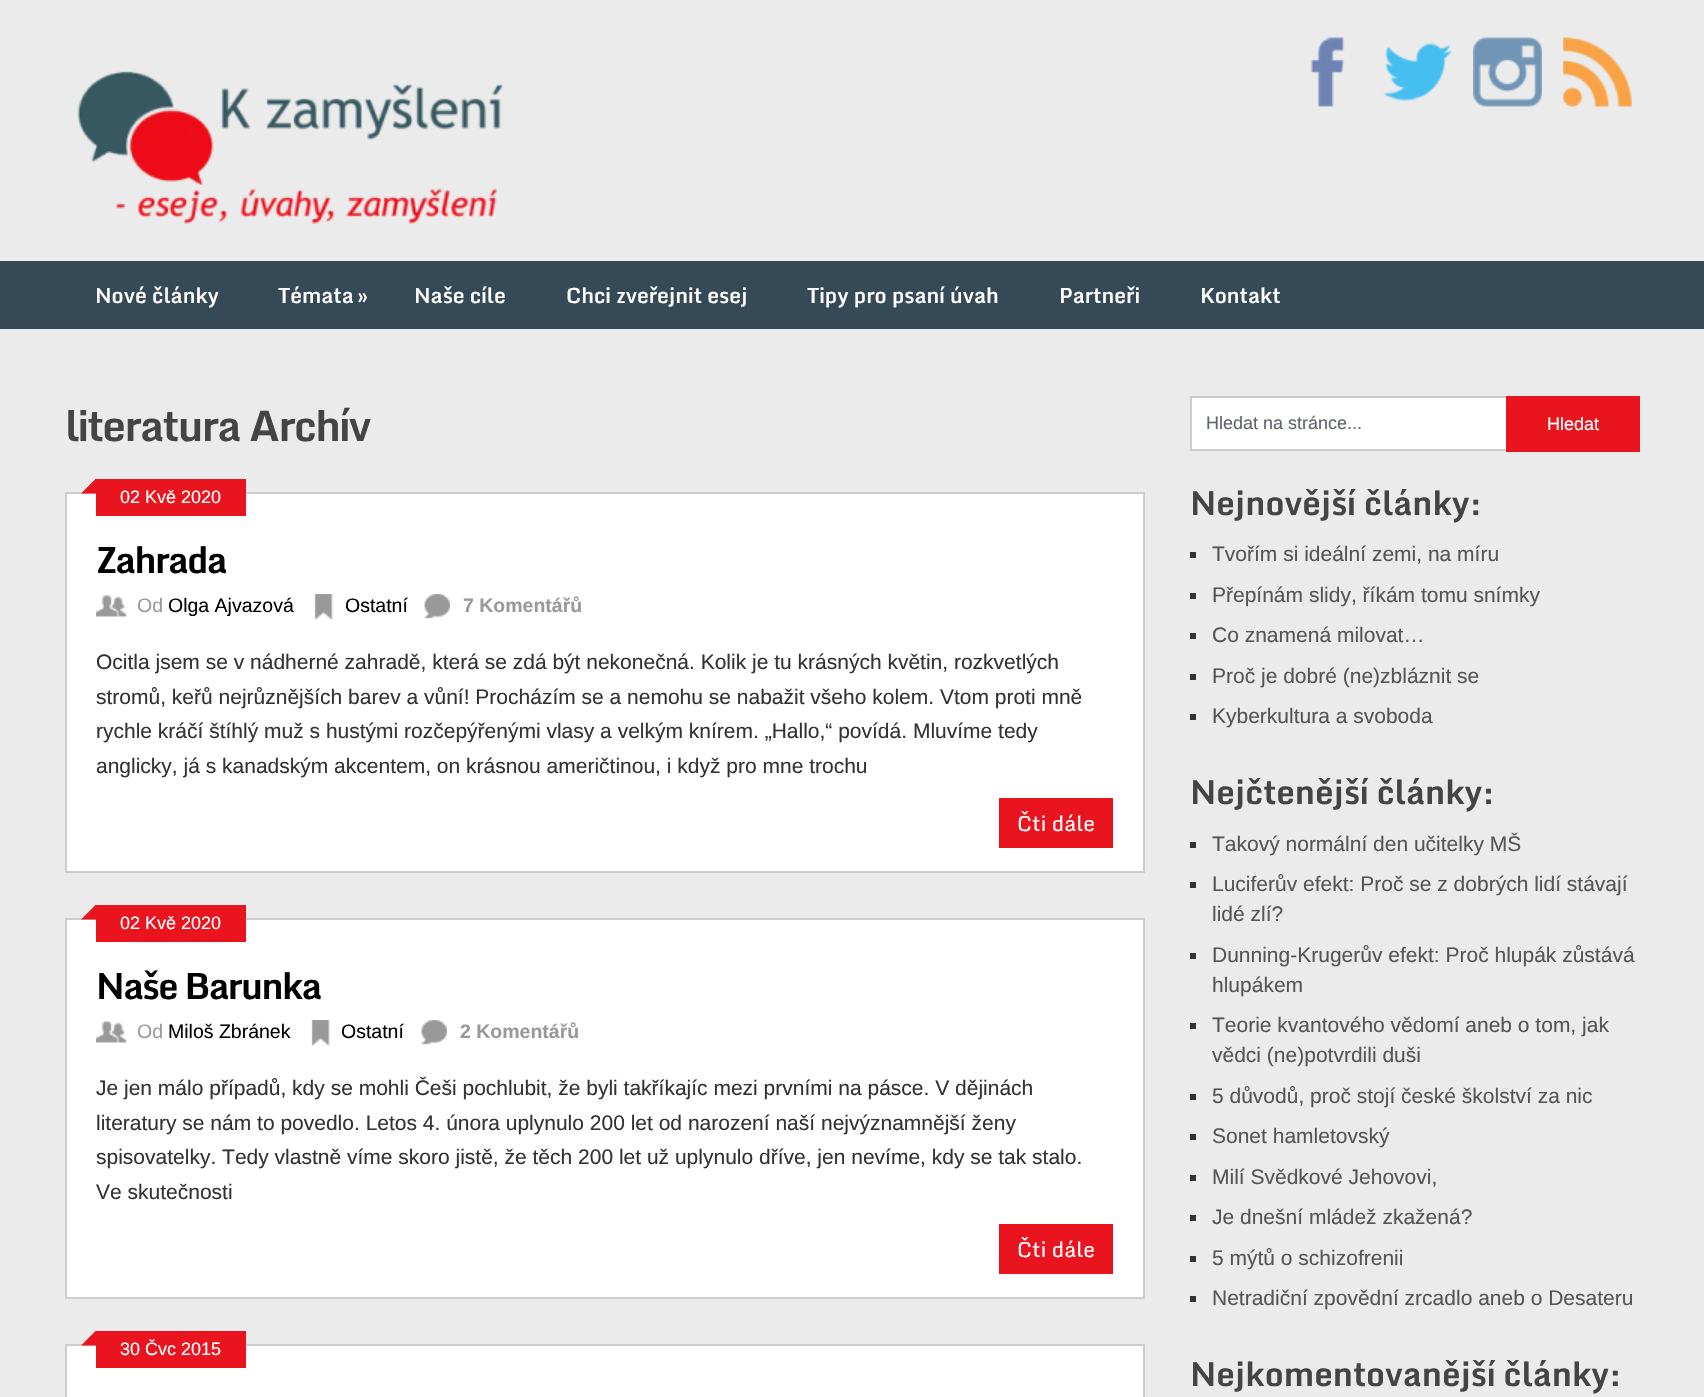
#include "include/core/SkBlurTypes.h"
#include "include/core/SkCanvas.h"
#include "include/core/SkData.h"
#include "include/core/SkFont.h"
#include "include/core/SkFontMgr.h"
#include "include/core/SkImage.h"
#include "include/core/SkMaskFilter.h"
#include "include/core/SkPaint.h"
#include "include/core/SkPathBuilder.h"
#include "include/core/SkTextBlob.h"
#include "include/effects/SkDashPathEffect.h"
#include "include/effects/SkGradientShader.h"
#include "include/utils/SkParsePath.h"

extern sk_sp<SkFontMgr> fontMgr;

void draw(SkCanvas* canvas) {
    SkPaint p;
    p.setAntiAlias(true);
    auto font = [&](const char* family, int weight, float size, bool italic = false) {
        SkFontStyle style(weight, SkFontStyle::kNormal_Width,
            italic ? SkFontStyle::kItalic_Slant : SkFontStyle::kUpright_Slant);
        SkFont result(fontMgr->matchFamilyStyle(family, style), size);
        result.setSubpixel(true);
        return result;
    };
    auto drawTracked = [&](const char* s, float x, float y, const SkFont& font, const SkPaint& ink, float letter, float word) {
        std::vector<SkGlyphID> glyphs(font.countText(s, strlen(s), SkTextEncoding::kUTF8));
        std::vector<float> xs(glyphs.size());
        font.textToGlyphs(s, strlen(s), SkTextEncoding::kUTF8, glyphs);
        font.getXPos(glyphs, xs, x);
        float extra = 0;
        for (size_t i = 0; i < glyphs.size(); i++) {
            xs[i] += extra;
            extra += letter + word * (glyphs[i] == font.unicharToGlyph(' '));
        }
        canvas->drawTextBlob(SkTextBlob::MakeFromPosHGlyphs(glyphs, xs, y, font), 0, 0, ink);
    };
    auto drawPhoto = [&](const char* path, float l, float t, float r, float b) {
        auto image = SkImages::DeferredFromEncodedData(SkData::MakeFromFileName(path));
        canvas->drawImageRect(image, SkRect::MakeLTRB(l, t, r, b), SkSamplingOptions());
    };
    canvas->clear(0xFFEBEBEB);
    drawPhoto("media/1.png", 77, 71, 503, 224);
    drawPhoto("media/2.png", 1310, 37, 1345, 107);
    drawPhoto("media/3.png", 1383, 43, 1452, 101);
    drawPhoto("media/4.png", 1473, 37, 1542, 107);
    drawPhoto("media/5.png", 1563, 37, 1632, 107);
    p.setColor(0xFF364956);
    canvas->drawRect(SkRect::MakeLTRB(0, 261, 1704, 329), p);
    auto font1 = font("Monda", 600, 21);
    p.setColor(0xFFFFFFFF);
    {
        const struct { const char* s; float x, y; } items[] = {
            {"Nové články", 95, 303},
            {"Témata", 278, 303},
            {"»", 357, 303},
            {"Naše cíle", 414, 303},
            {"Chci zveřejnit esej", 566, 303},
            {"Tipy pro psaní úvah", 807, 303},
            {"Partneři", 1059, 303},
            {"Kontakt", 1200, 303},
        };
        for (auto [s, x, y] : items) {
            canvas->drawString(s, x, y, font1, p);
        }
    }
    auto font2 = font("Monda", 700, 42);
    p.setColor(0xFF444444);
    drawTracked("literatura Archív", 65, 441, font2, p, -1.5f, 0);
    p.setColor(0xFFFFFFFF);
    canvas->drawRect(SkRect::MakeLTRB(66, 493, 1144, 872), p);
    p.setStyle(SkPaint::kStroke_Style);
    p.setStrokeWidth(2);
    p.setColor(0xFFCDCDCD);
    canvas->drawRect(SkRect::MakeLTRB(66, 493, 1144, 872), p);
    p.setStyle(SkPaint::kFill_Style);
    p.setColor(0xFFEA141F);
    canvas->drawRect(SkRect::MakeLTRB(96, 479, 246, 516), p);
    canvas->drawPath(SkPathBuilder().moveTo(96, 493.5f).lineTo(81, 493.5f).lineTo(96, 478.5f).close().detach(), p);
    auto font3 = font("Liberation Sans", 400, 18);
    p.setColor(0xFFFFFFFF);
    canvas->drawString("02 Kvě 2020", 120, 503, font3, p);
    auto font4 = font("Monda", 700, 36);
    p.setColor(0xFF000000);
    drawTracked("Zahrada", 96, 573, font4, p, -1.5f, 0);
    drawPhoto("media/6.png", 96, 595, 126, 617);
    auto font5 = font("Liberation Sans", 400, 19.5f);
    p.setColor(0xFF999999);
    canvas->drawString("Od", 137, 612, font5, p);
    p.setColor(0xFF000000);
    canvas->drawString("Olga Ajvazová", 168, 612, font5, p);
    drawPhoto("media/7.png", 314, 594, 334, 620);
    canvas->drawString("Ostatní", 345, 612, font5, p);
    drawPhoto("media/8.png", 424, 594, 450, 619);
    auto font6 = font("Liberation Sans", 700, 19.5f);
    p.setColor(0xFF999999);
    canvas->drawString("7 Komentářů", 463, 612, font6, p);
    auto font7 = font("Liberation Sans", 400, 21);
    p.setColor(0xFF333333);
    {
        const struct { const char* s; float x, y; } items[] = {
            {"Ocitla jsem se v nádherné zahradě, která se zdá být nekonečná. Kolik je tu krásných květin, rozkvetlých", 96, 669},
            {"stromů, keřů nejrůznějších barev a vůní! Procházím se a nemohu se nabažit všeho kolem. Vtom proti mně", 96, 704},
            {"rychle kráčí štíhlý muž s hustými rozčepýřenými vlasy a velkým knírem. „Hallo,“ povídá. Mluvíme tedy", 96, 738},
            {"anglicky, já s kanadským akcentem, on krásnou američtinou, i když pro mne trochu", 96, 773},
        };
        for (auto [s, x, y] : items) {
            canvas->drawString(s, x, y, font7, p);
        }
    }
    p.setColor(0xFFEA141F);
    canvas->drawRect(SkRect::MakeLTRB(999, 798, 1113, 848), p);
    auto font8 = font("Monda", 400, 21);
    p.setColor(0xFFFFFFFF);
    canvas->drawString("Čti dále", 1017, 831, font8, p);
    canvas->drawRect(SkRect::MakeLTRB(66, 919, 1144, 1298), p);
    p.setStyle(SkPaint::kStroke_Style);
    p.setColor(0xFFCDCDCD);
    canvas->drawRect(SkRect::MakeLTRB(66, 919, 1144, 1298), p);
    p.setStyle(SkPaint::kFill_Style);
    p.setColor(0xFFEA141F);
    canvas->drawRect(SkRect::MakeLTRB(96, 905, 246, 942), p);
    canvas->drawPath(SkPathBuilder().moveTo(96, 919.5f).lineTo(81, 919.5f).lineTo(96, 904.5f).close().detach(), p);
    p.setColor(0xFFFFFFFF);
    canvas->drawString("02 Kvě 2020", 120, 929, font3, p);
    p.setColor(0xFF000000);
    drawTracked("Naše Barunka", 96, 999, font4, p, -1.5f, 0);
    drawPhoto("media/6.png", 96, 1021, 126, 1043);
    p.setColor(0xFF999999);
    canvas->drawString("Od", 137, 1038, font5, p);
    p.setColor(0xFF000000);
    canvas->drawString("Miloš Zbránek", 168, 1038, font5, p);
    drawPhoto("media/7.png", 311, 1020, 331, 1046);
    canvas->drawString("Ostatní", 341, 1038, font5, p);
    drawPhoto("media/8.png", 421, 1020, 447, 1045);
    p.setColor(0xFF999999);
    canvas->drawString("2 Komentářů", 460, 1038, font6, p);
    p.setColor(0xFF333333);
    {
        const struct { const char* s; float x, y; } items[] = {
            {"Je jen málo případů, kdy se mohli Češi pochlubit, že byli takříkajíc mezi prvními na pásce. V dějinách", 96, 1095},
            {"literatury se nám to povedlo. Letos 4. února uplynulo 200 let od narození naší nejvýznamnější ženy", 96, 1130},
            {"spisovatelky. Tedy vlastně víme skoro jistě, že těch 200 let už uplynulo dříve, jen nevíme, kdy se tak stalo.", 96, 1164},
            {"Ve skutečnosti", 96, 1199},
        };
        for (auto [s, x, y] : items) {
            canvas->drawString(s, x, y, font7, p);
        }
    }
    p.setColor(0xFFEA141F);
    canvas->drawRect(SkRect::MakeLTRB(999, 1224, 1113, 1274), p);
    p.setColor(0xFFFFFFFF);
    canvas->drawString("Čti dále", 1017, 1257, font8, p);
    canvas->drawRect(SkRect::MakeLTRB(66, 1345, 1144, 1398), p);
    p.setStyle(SkPaint::kStroke_Style);
    p.setColor(0xFFCDCDCD);
    canvas->drawRect(SkRect::MakeLTRB(66, 1345, 1144, 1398), p);
    p.setStyle(SkPaint::kFill_Style);
    p.setColor(0xFFEA141F);
    canvas->drawRect(SkRect::MakeLTRB(96, 1331, 246, 1368), p);
    canvas->drawPath(SkPathBuilder().moveTo(96, 1345.5f).lineTo(81, 1345.5f).lineTo(96, 1330.5f).close().detach(), p);
    p.setColor(0xFFFFFFFF);
    canvas->drawString("30 Čvc 2015", 120, 1355, font3, p);
    {
        const struct { float l, t, r, b; SkColor color; } items[] = {
            {1192, 398, 1506, 449, 0xFFFFFFFF},
            {1190, 396, 1506, 398, 0xFFCCCCCC},
            {1190, 449, 1506, 451, 0xFFCCCCCC},
            {1190, 396, 1192, 450, 0xFFCCCCCC},
        };
        for (auto [l, t, r, b, color] : items) {
            p.setColor(color);
            canvas->drawRect(SkRect::MakeLTRB(l, t, r, b), p);
        }
    }
    p.setColor(0xFF5E656D);
    canvas->drawString("Hledat na stránce...", 1206, 429, font3, p);
    p.setColor(0xFFEA141F);
    canvas->drawRect(SkRect::MakeLTRB(1506, 396, 1640, 452), p);
    p.setColor(0xFFFFFFFF);
    canvas->drawString("Hledat", 1547, 430, font3, p);
    auto font9 = font("Monda", 700, 33);
    p.setColor(0xFF444444);
    canvas->drawString("Nejnovější články:", 1190, 515, font9, p);
    p.setColor(0xFF333333);
    canvas->drawRect(SkRect::MakeLTRB(1190, 552, 1196, 558), p);
    p.setColor(0xFF555555);
    canvas->drawString("Tvořím si ideální zemi, na míru", 1212, 561, font7, p);
    p.setColor(0xFF333333);
    canvas->drawRect(SkRect::MakeLTRB(1190, 593, 1196, 599), p);
    p.setColor(0xFF555555);
    canvas->drawString("Přepínám slidy, říkám tomu snímky", 1212, 602, font7, p);
    p.setColor(0xFF333333);
    canvas->drawRect(SkRect::MakeLTRB(1190, 633, 1196, 639), p);
    p.setColor(0xFF555555);
    canvas->drawString("Co znamená milovat…", 1212, 642, font7, p);
    p.setColor(0xFF333333);
    canvas->drawRect(SkRect::MakeLTRB(1190, 674, 1196, 680), p);
    p.setColor(0xFF555555);
    canvas->drawString("Proč je dobré (ne)zbláznit se", 1212, 683, font7, p);
    p.setColor(0xFF333333);
    canvas->drawRect(SkRect::MakeLTRB(1190, 714, 1196, 720), p);
    p.setColor(0xFF555555);
    canvas->drawString("Kyberkultura a svoboda", 1212, 723, font7, p);
    p.setColor(0xFF444444);
    canvas->drawString("Nejčtenější články:", 1190, 804, font9, p);
    p.setColor(0xFF333333);
    canvas->drawRect(SkRect::MakeLTRB(1190, 842, 1196, 848), p);
    p.setColor(0xFF555555);
    canvas->drawString("Takový normální den učitelky MŠ", 1212, 851, font7, p);
    p.setColor(0xFF333333);
    canvas->drawRect(SkRect::MakeLTRB(1190, 882, 1196, 888), p);
    p.setColor(0xFF555555);
    canvas->drawString("Luciferův efekt: Proč se z dobrých lidí stávají", 1212, 891, font7, p);
    canvas->drawString("lidé zlí?", 1212, 921, font7, p);
    p.setColor(0xFF333333);
    canvas->drawRect(SkRect::MakeLTRB(1190, 953, 1196, 959), p);
    p.setColor(0xFF555555);
    canvas->drawString("Dunning-Krugerův efekt: Proč hlupák zůstává", 1212, 962, font7, p);
    canvas->drawString("hlupákem", 1212, 992, font7, p);
    p.setColor(0xFF333333);
    canvas->drawRect(SkRect::MakeLTRB(1190, 1023, 1196, 1029), p);
    p.setColor(0xFF555555);
    canvas->drawString("Teorie kvantového vědomí aneb o tom, jak", 1212, 1032, font7, p);
    canvas->drawString("vědci (ne)potvrdili duši", 1212, 1062, font7, p);
    p.setColor(0xFF333333);
    canvas->drawRect(SkRect::MakeLTRB(1190, 1094, 1196, 1100), p);
    p.setColor(0xFF555555);
    canvas->drawString("5 důvodů, proč stojí české školství za nic", 1212, 1103, font7, p);
    p.setColor(0xFF333333);
    canvas->drawRect(SkRect::MakeLTRB(1190, 1134, 1196, 1140), p);
    p.setColor(0xFF555555);
    canvas->drawString("Sonet hamletovský", 1212, 1143, font7, p);
    p.setColor(0xFF333333);
    canvas->drawRect(SkRect::MakeLTRB(1190, 1175, 1196, 1181), p);
    p.setColor(0xFF555555);
    canvas->drawString("Milí Svědkové Jehovovi,", 1212, 1184, font7, p);
    p.setColor(0xFF333333);
    canvas->drawRect(SkRect::MakeLTRB(1190, 1215, 1196, 1221), p);
    p.setColor(0xFF555555);
    canvas->drawString("Je dnešní mládež zkažená?", 1212, 1224, font7, p);
    p.setColor(0xFF333333);
    canvas->drawRect(SkRect::MakeLTRB(1190, 1256, 1196, 1262), p);
    p.setColor(0xFF555555);
    canvas->drawString("5 mýtů o schizofrenii", 1212, 1265, font7, p);
    p.setColor(0xFF333333);
    canvas->drawRect(SkRect::MakeLTRB(1190, 1296, 1196, 1302), p);
    p.setColor(0xFF555555);
    canvas->drawString("Netradiční zpovědní zrcadlo aneb o Desateru", 1212, 1305, font7, p);
    p.setColor(0xFF444444);
    canvas->drawString("Nejkomentovanější články:", 1190, 1386, font9, p);
}
